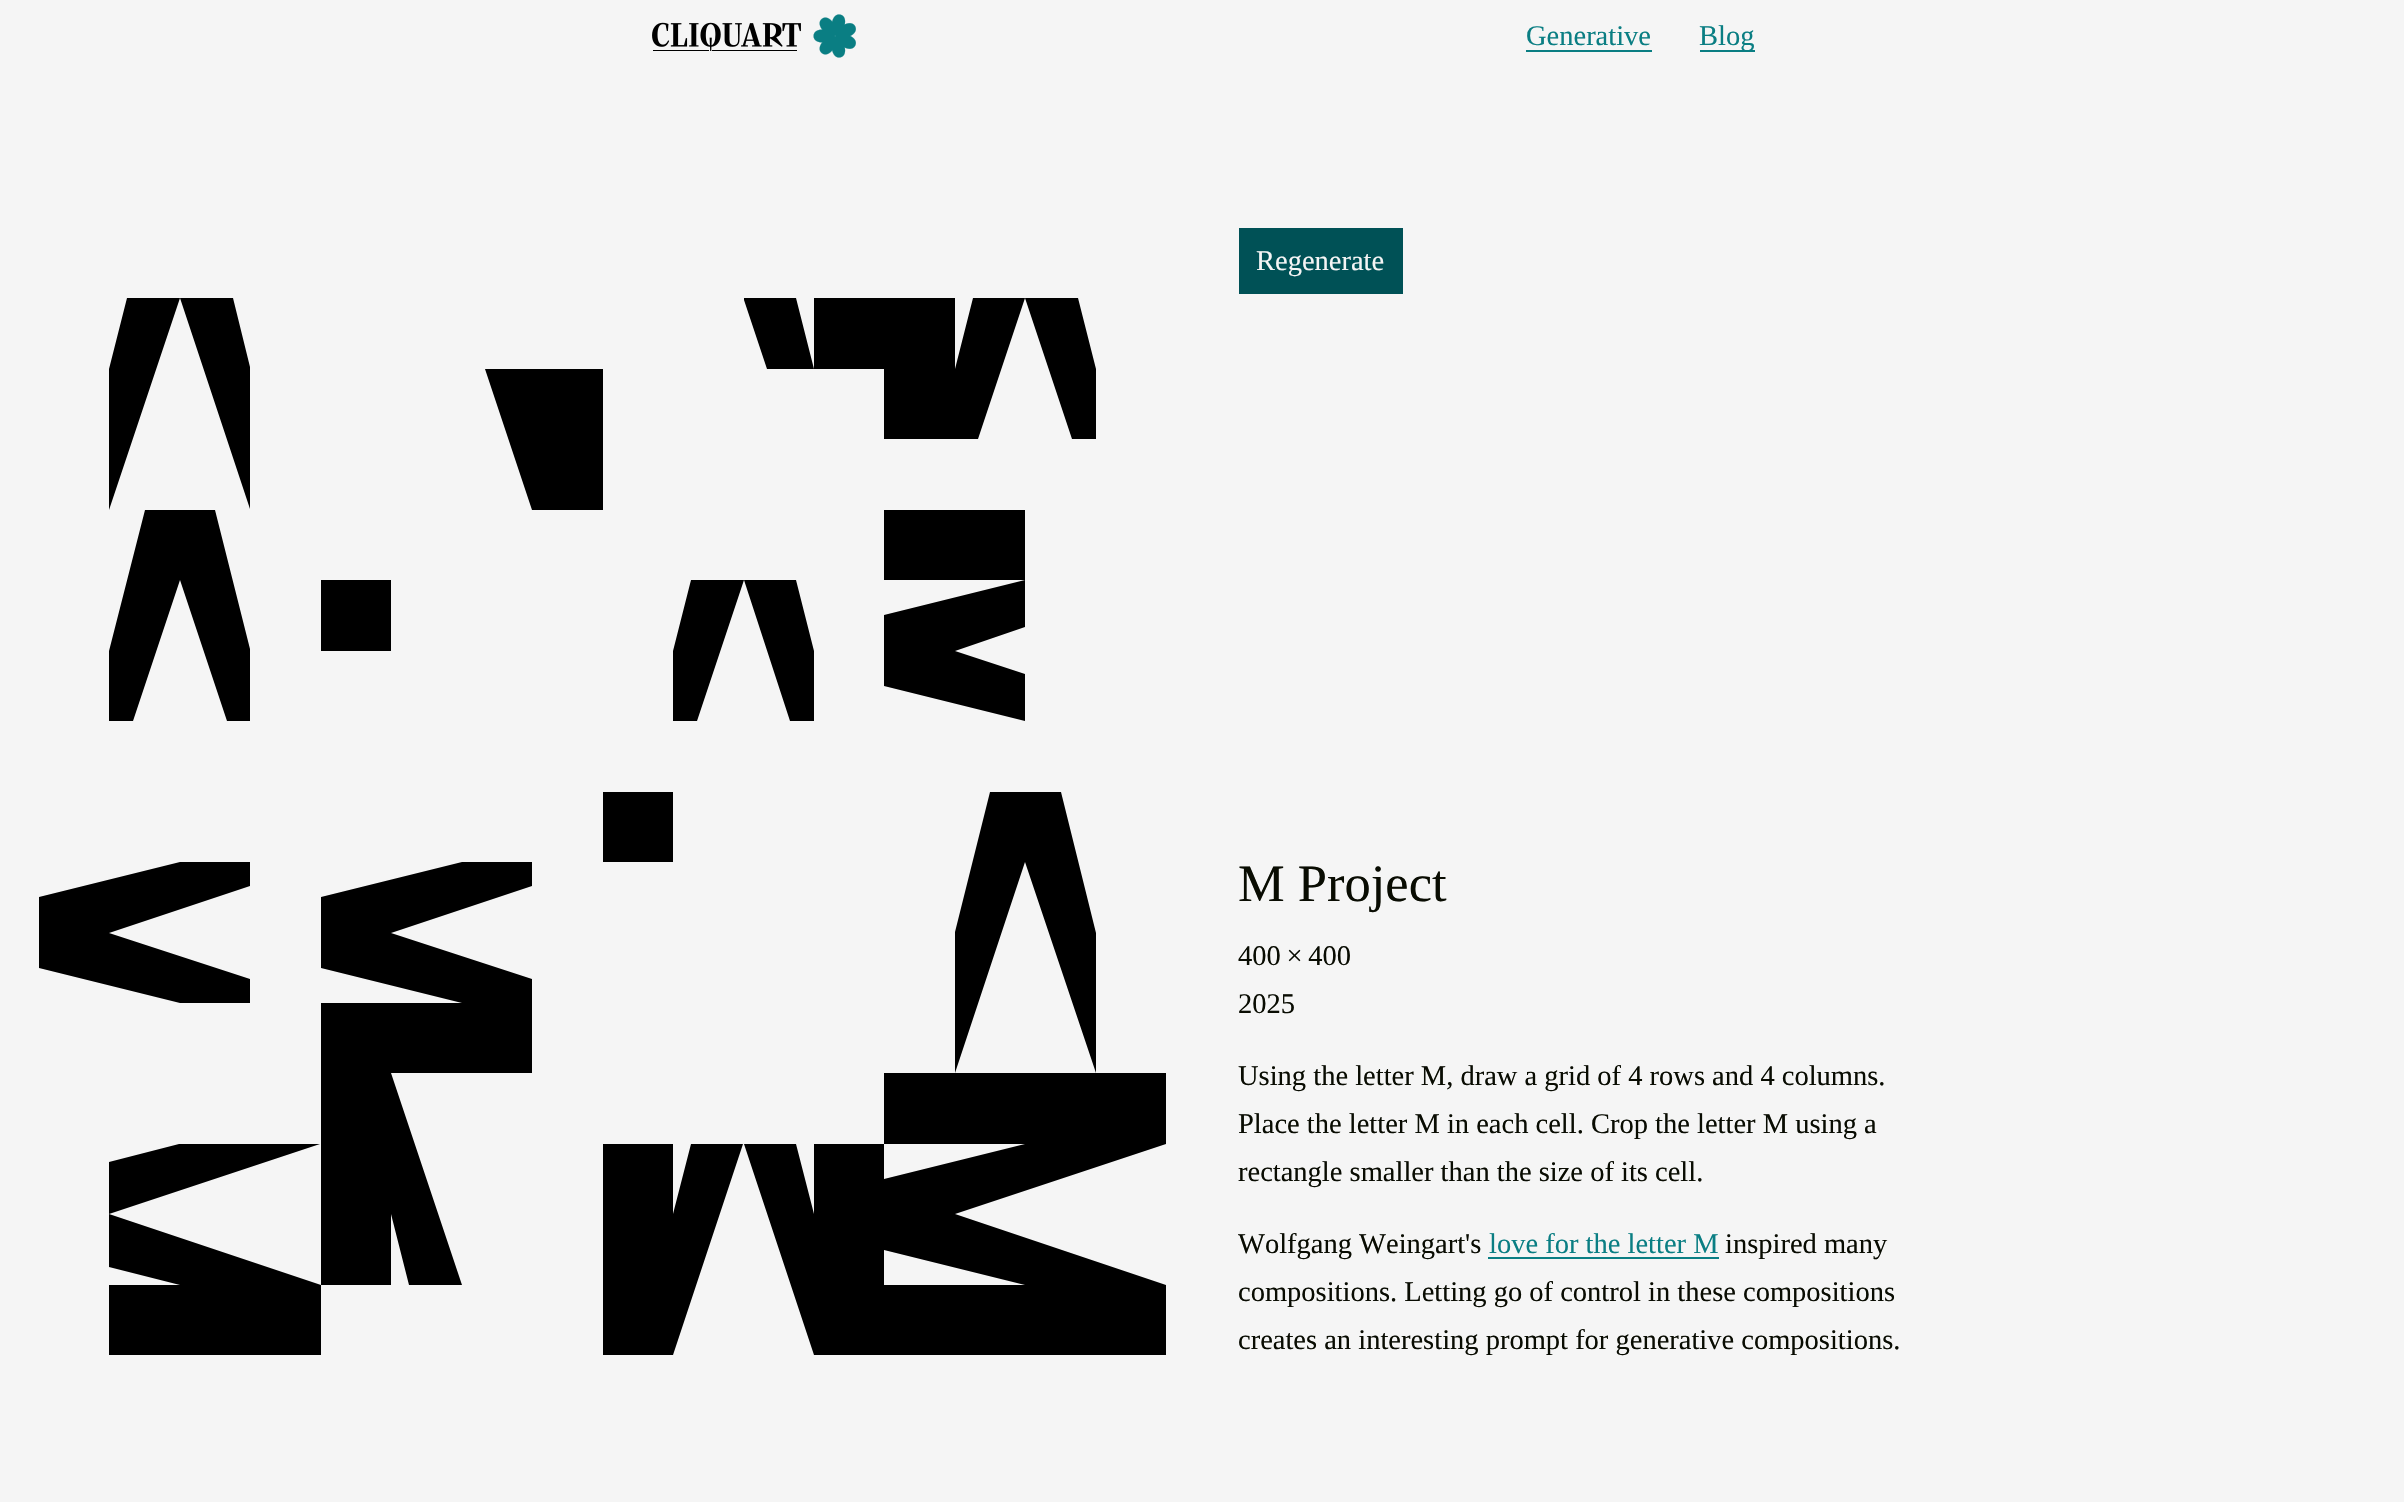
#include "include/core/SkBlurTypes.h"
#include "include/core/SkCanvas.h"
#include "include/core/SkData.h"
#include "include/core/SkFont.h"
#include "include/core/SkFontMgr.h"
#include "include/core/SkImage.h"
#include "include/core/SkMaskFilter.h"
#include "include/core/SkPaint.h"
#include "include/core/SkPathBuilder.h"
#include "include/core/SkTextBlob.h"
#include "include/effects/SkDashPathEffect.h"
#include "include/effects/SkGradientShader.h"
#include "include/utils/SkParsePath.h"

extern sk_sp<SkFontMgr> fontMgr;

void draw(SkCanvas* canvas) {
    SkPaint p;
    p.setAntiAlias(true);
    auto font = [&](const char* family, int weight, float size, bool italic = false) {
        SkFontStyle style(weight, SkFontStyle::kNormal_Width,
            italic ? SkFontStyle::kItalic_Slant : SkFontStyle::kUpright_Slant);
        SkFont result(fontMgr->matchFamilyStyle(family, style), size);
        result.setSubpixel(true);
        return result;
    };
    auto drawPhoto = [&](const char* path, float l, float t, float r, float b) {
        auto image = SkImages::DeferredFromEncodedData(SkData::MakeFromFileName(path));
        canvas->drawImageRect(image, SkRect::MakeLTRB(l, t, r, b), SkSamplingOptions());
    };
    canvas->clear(0xFFF5F5F5);
    drawPhoto("media/1.png", 652, 22, 801, 51);
    drawPhoto("media/2.png", 813, 14, 856, 58);
    auto font1 = font("Liberation Serif", 400, 28.5f);
    p.setColor(0xFF0A7E83);
    canvas->drawString("Generative", 1526, 45, font1, p);
    canvas->drawRect(SkRect::MakeLTRB(1526, 50, 1652, 52), p);
    canvas->drawRect(SkRect::MakeLTRB(1700, 50, 1755, 52), p);
    canvas->drawString("Blog", 1699, 45, font1, p);
    p.setColor(0xFF000000);
    canvas->drawPath(SkPathBuilder().moveTo(109, 298).lineTo(109, 510).lineTo(180, 298).lineTo(250, 509).lineTo(250, 367).lineTo(233, 298).lineTo(127, 298).lineTo(109, 369).close().detach(), p);
    canvas->drawPath(SkPathBuilder().moveTo(603, 510).lineTo(532, 510).lineTo(485, 369).lineTo(603, 369).close().detach(), p);
    canvas->drawPath(SkPathBuilder().moveTo(744, 298).lineTo(744, 300).lineTo(767, 369).lineTo(884, 369).lineTo(884, 298).lineTo(814, 298).lineTo(814, 369).lineTo(796, 298).close().detach(), p);
    canvas->drawPath(SkPathBuilder().moveTo(1072, 439).lineTo(1096, 439).lineTo(1096, 298).lineTo(1096, 369).lineTo(1078, 298).lineTo(973, 298).lineTo(955, 369).lineTo(955, 298).lineTo(884, 298).lineTo(884, 439).lineTo(978, 439).lineTo(1025, 298).close().detach(), p);
    canvas->drawPath(SkPathBuilder().moveTo(109, 510).lineTo(109, 721).lineTo(133, 721).lineTo(180, 580).lineTo(227, 721).lineTo(250, 721).lineTo(250, 649).lineTo(215, 510).lineTo(145, 510).lineTo(109, 651).close().detach(), p);
    canvas->drawRect(SkRect::MakeLTRB(321, 580, 391, 651), p);
    canvas->drawPath(SkPathBuilder().moveTo(673, 580).lineTo(673, 721).lineTo(697, 721).lineTo(744, 580).lineTo(790, 721).lineTo(814, 721).lineTo(814, 580).lineTo(814, 651).lineTo(796, 580).lineTo(691, 580).lineTo(673, 651).close().detach(), p);
    canvas->drawPath(SkPathBuilder(SkPathFillType::kEvenOdd).moveTo(1025, 627).lineTo(1025, 580).lineTo(884, 615).lineTo(884, 686).lineTo(1025, 721).lineTo(1025, 674).lineTo(955, 651).close().moveTo(884, 510).lineTo(884, 580).lineTo(1025, 580).lineTo(1025, 510).close().detach(), p);
    canvas->drawPath(SkPathBuilder().moveTo(39, 862).lineTo(180, 862).lineTo(39, 897).lineTo(39, 968).lineTo(180, 1003).lineTo(39, 1003).lineTo(250, 1003).lineTo(250, 979).lineTo(109, 933).lineTo(250, 886).lineTo(250, 862).close().detach(), p);
    canvas->drawPath(SkPathBuilder().moveTo(321, 862).lineTo(462, 862).lineTo(321, 897).lineTo(321, 968).lineTo(462, 1003).lineTo(321, 1003).lineTo(321, 1073).lineTo(532, 1073).lineTo(532, 979).lineTo(391, 933).lineTo(532, 886).lineTo(532, 862).close().detach(), p);
    canvas->drawRect(SkRect::MakeLTRB(603, 792, 673, 862), p);
    canvas->drawPath(SkPathBuilder().moveTo(1096, 1073).lineTo(1096, 792).lineTo(1096, 933).lineTo(1061, 792).lineTo(990, 792).lineTo(955, 932).lineTo(955, 1073).lineTo(1025, 862).close().detach(), p);
    canvas->drawPath(SkPathBuilder().moveTo(320, 1144).lineTo(179, 1144).lineTo(109, 1162).lineTo(109, 1267).lineTo(180, 1285).lineTo(109, 1285).lineTo(109, 1355).lineTo(321, 1355).lineTo(321, 1285).lineTo(109, 1214).close().detach(), p);
    canvas->drawPath(SkPathBuilder().moveTo(391, 1285).lineTo(321, 1285).lineTo(321, 1073).lineTo(391, 1073).lineTo(462, 1285).lineTo(462, 1284).lineTo(462, 1285).lineTo(409, 1285).lineTo(391, 1214).close().detach(), p);
    canvas->drawPath(SkPathBuilder(SkPathFillType::kEvenOdd).moveTo(814, 1355).lineTo(884, 1355).lineTo(884, 1144).lineTo(814, 1144).lineTo(814, 1214).lineTo(796, 1144).lineTo(744, 1144).close().moveTo(603, 1144).lineTo(603, 1355).lineTo(673, 1355).lineTo(743, 1144).lineTo(691, 1144).lineTo(673, 1214).lineTo(673, 1144).close().detach(), p);
    canvas->drawPath(SkPathBuilder().moveTo(1166, 1285).lineTo(1166, 1355).lineTo(884, 1355).lineTo(884, 1285).lineTo(1025, 1285).lineTo(884, 1250).lineTo(884, 1179).lineTo(1025, 1144).lineTo(884, 1144).lineTo(884, 1073).lineTo(1166, 1073).lineTo(1166, 1144).lineTo(955, 1214).close().detach(), p);
    p.setColor(0xFF005156);
    canvas->drawRect(SkRect::MakeLTRB(1239, 228, 1403, 294), p);
    p.setColor(0xFFF5F5F5);
    canvas->drawString("Regenerate", 1256, 270, font1, p);
    auto font2 = font("Liberation Serif", 400, 52.5f);
    p.setColor(0xFF090C02);
    canvas->drawString("M Project", 1238, 901, font2, p);
    {
        const struct { const char* s; float x, y; } items[] = {
            {"400 × 400", 1238, 965},
            {"2025", 1238, 1013},
            {"Using the letter M, draw a grid of 4 rows and 4 columns.", 1238, 1085},
            {"Place the letter M in each cell. Crop the letter M using a", 1238, 1133},
            {"rectangle smaller than the size of its cell.", 1238, 1181},
            {"Wolfgang Weingart's", 1238, 1253},
        };
        for (auto [s, x, y] : items) {
            canvas->drawString(s, x, y, font1, p);
        }
    }
    p.setColor(0xFF0A7E83);
    canvas->drawString("love for the letter M", 1489, 1253, font1, p);
    canvas->drawRect(SkRect::MakeLTRB(1488, 1257, 1719, 1259), p);
    p.setColor(0xFF090C02);
    {
        const struct { const char* s; float x, y; } items[] = {
            {"inspired many", 1725, 1253},
            {"compositions. Letting go of control in these compositions", 1238, 1301},
            {"creates an interesting prompt for generative compositions.", 1238, 1349},
        };
        for (auto [s, x, y] : items) {
            canvas->drawString(s, x, y, font1, p);
        }
    }
}
